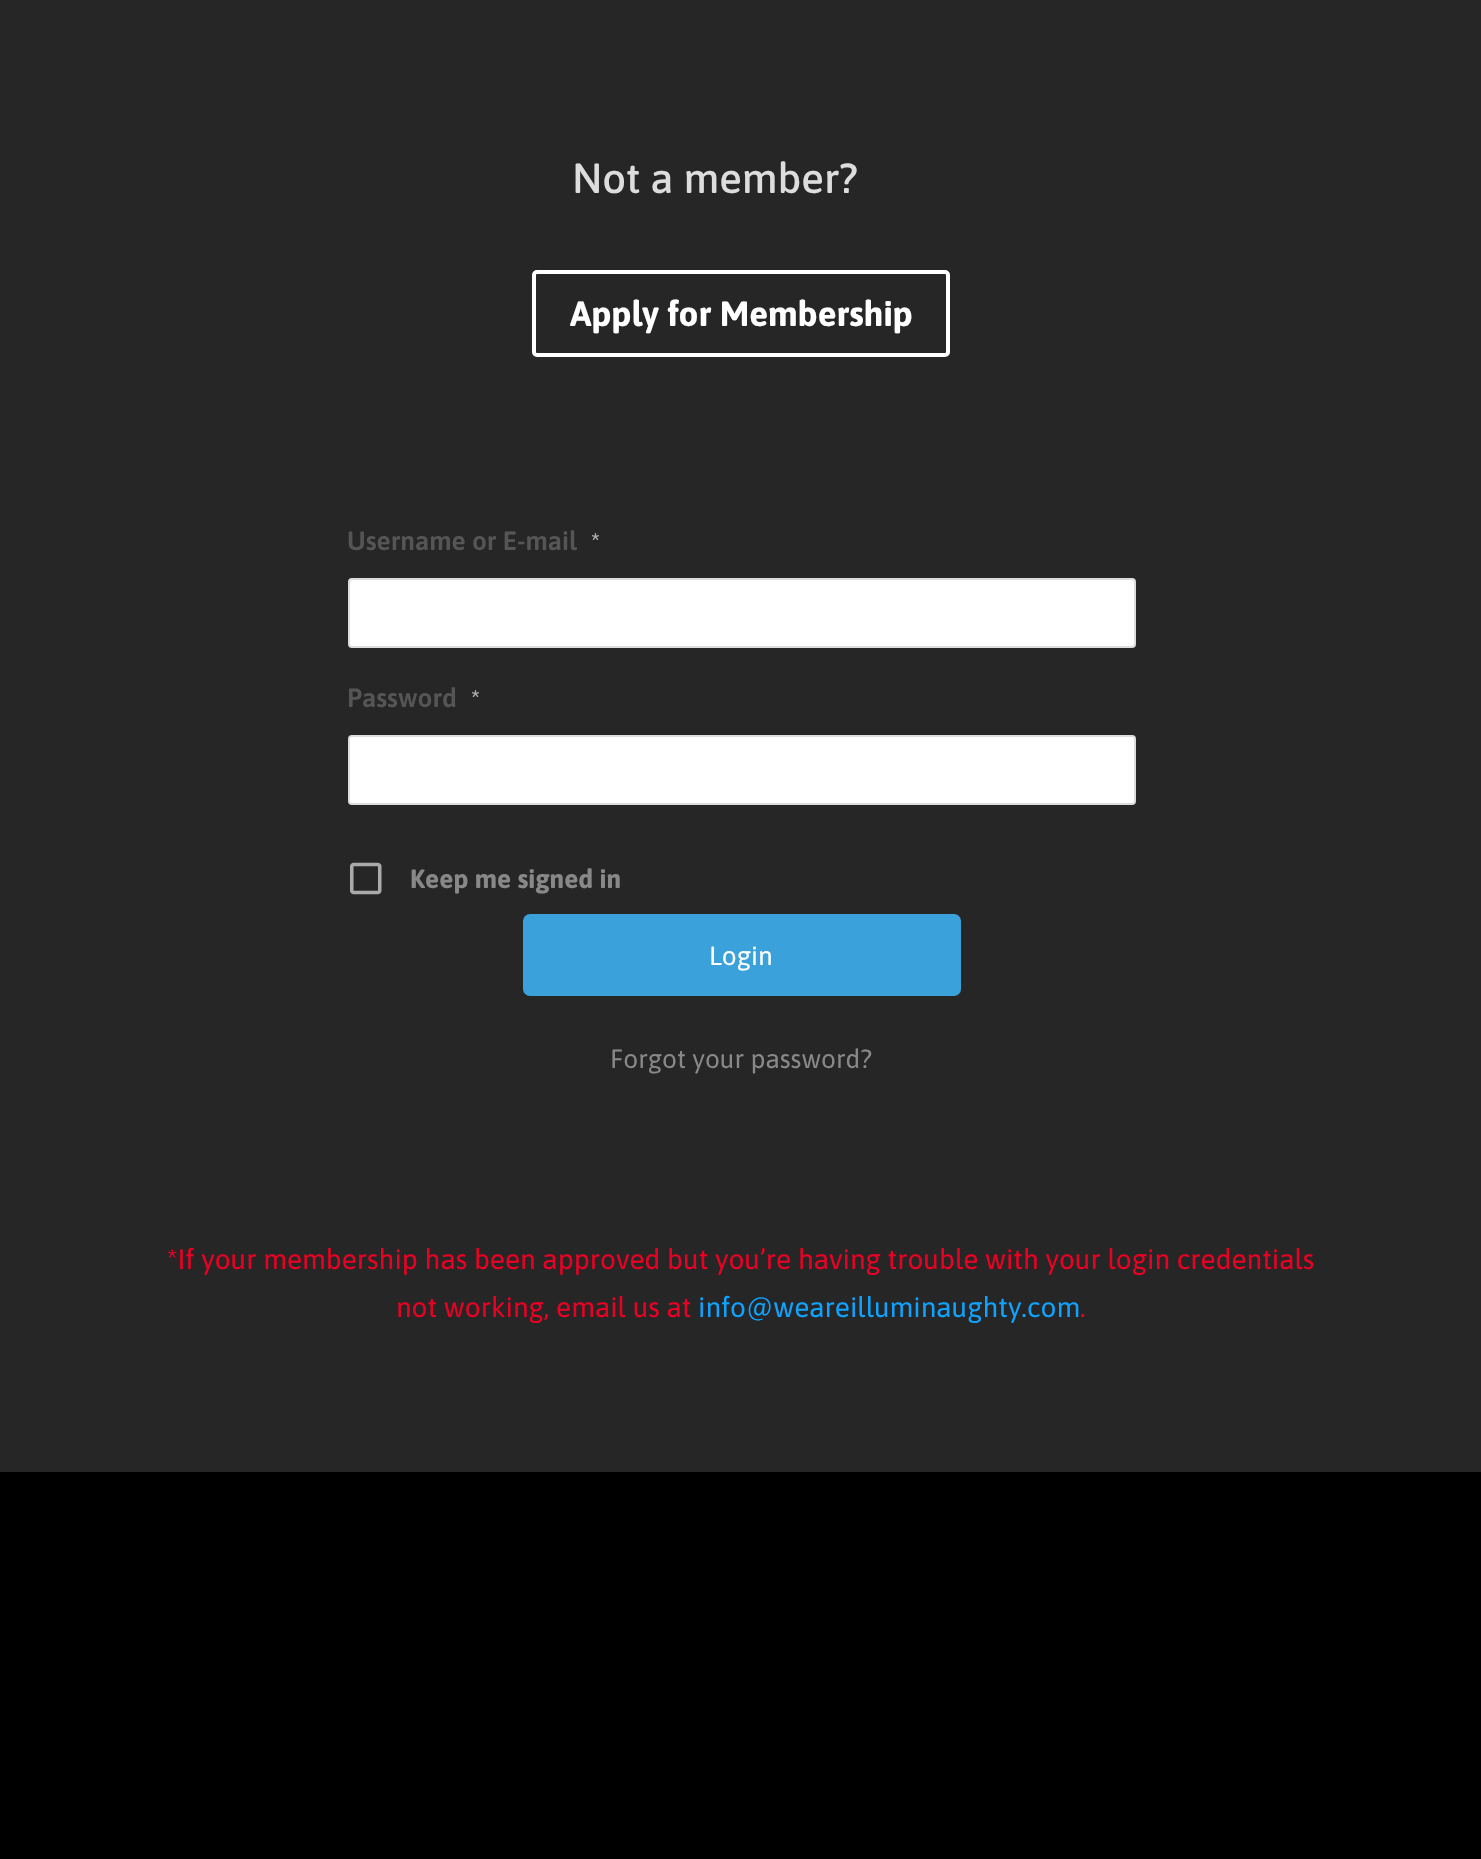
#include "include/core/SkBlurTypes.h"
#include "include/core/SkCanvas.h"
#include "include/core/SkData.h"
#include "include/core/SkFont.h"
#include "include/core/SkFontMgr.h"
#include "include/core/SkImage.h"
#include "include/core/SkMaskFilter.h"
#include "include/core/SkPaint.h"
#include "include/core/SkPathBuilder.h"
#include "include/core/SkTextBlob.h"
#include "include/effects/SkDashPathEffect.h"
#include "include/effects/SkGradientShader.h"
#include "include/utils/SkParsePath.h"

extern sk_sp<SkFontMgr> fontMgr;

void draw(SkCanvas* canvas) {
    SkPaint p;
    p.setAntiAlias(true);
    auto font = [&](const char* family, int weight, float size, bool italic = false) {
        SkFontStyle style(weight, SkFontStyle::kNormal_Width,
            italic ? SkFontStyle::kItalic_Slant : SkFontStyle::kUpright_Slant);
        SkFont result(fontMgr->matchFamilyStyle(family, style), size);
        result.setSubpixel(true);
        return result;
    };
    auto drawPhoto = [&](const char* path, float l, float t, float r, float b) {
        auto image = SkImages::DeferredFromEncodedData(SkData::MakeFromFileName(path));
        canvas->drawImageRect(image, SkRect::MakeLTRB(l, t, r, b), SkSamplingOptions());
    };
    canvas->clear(0xFF000000);
    p.setColor(0xFF262626);
    canvas->drawRect(SkRect::MakeLTRB(0, 0, 1481, 1472), p);
    auto font1 = font("Asap", 500, 42);
    p.setColor(0xFFDDDDDD);
    canvas->drawString("Not a member?", 572, 193, font1, p);
    p.setStyle(SkPaint::kStroke_Style);
    p.setStrokeWidth(4);
    p.setColor(0xFFFFFFFF);
    canvas->drawRoundRect(SkRect::MakeLTRB(534, 272, 948, 355), 3, 3, p);
    auto font2 = font("Asap", 700, 35);
    p.setStyle(SkPaint::kFill_Style);
    canvas->drawString("Apply for Membership", 570, 326, font2, p);
    auto font3 = font("Asap", 600, 26.25f);
    p.setColor(0xFF555555);
    canvas->drawString("Username or E-mail", 347, 550, font3, p);
    auto font4 = font("Asap", 600, 24);
    p.setColor(0xFFAAAAAA);
    canvas->drawString("*", 591, 550, font4, p);
    p.setColor(0xFFFFFFFF);
    canvas->drawRoundRect(SkRect::MakeLTRB(349, 579, 1135, 647), 3, 3, p);
    p.setStyle(SkPaint::kStroke_Style);
    p.setStrokeWidth(2);
    p.setColor(0xFFDDDDDD);
    canvas->drawRoundRect(SkRect::MakeLTRB(349, 579, 1135, 647), 3, 3, p);
    p.setStyle(SkPaint::kFill_Style);
    p.setColor(0xFF555555);
    canvas->drawString("Password", 347, 707, font3, p);
    p.setColor(0xFFAAAAAA);
    canvas->drawString("*", 471, 707, font4, p);
    p.setColor(0xFFFFFFFF);
    canvas->drawRoundRect(SkRect::MakeLTRB(349, 736, 1135, 804), 3, 3, p);
    p.setStyle(SkPaint::kStroke_Style);
    p.setColor(0xFFDDDDDD);
    canvas->drawRoundRect(SkRect::MakeLTRB(349, 736, 1135, 804), 3, 3, p);
    drawPhoto("media/1.png", 350, 862, 382, 895);
    auto font5 = font("Asap", 700, 26.25f);
    p.setStyle(SkPaint::kFill_Style);
    p.setColor(0xFF888888);
    canvas->drawString("Keep me signed in", 410, 888, font5, p);
    p.setColor(0xFF3BA1DA);
    canvas->drawRoundRect(SkRect::MakeLTRB(523, 914, 961, 996), 7, 7, p);
    auto font6 = font("Asap", 400, 26.25f);
    p.setColor(0xFFFFFFFF);
    canvas->drawString("Login", 709, 965, font6, p);
    p.setColor(0xFF888888);
    canvas->drawString("Forgot your password?", 610, 1068, font6, p);
    auto font7 = font("Asap", 400, 28);
    p.setColor(0xFFEA0023);
    canvas->drawString("*If your membership has been approved but you’re having trouble with your login credentials", 167, 1269, font7, p);
    canvas->drawString("not working, email us at", 396, 1317, font7, p);
    p.setColor(0xFF0FA3FF);
    canvas->drawString("info@weareilluminaughty.com", 698, 1317, font7, p);
    p.setColor(0xFFEA0023);
    canvas->drawString(".", 1080, 1317, font7, p);
}
